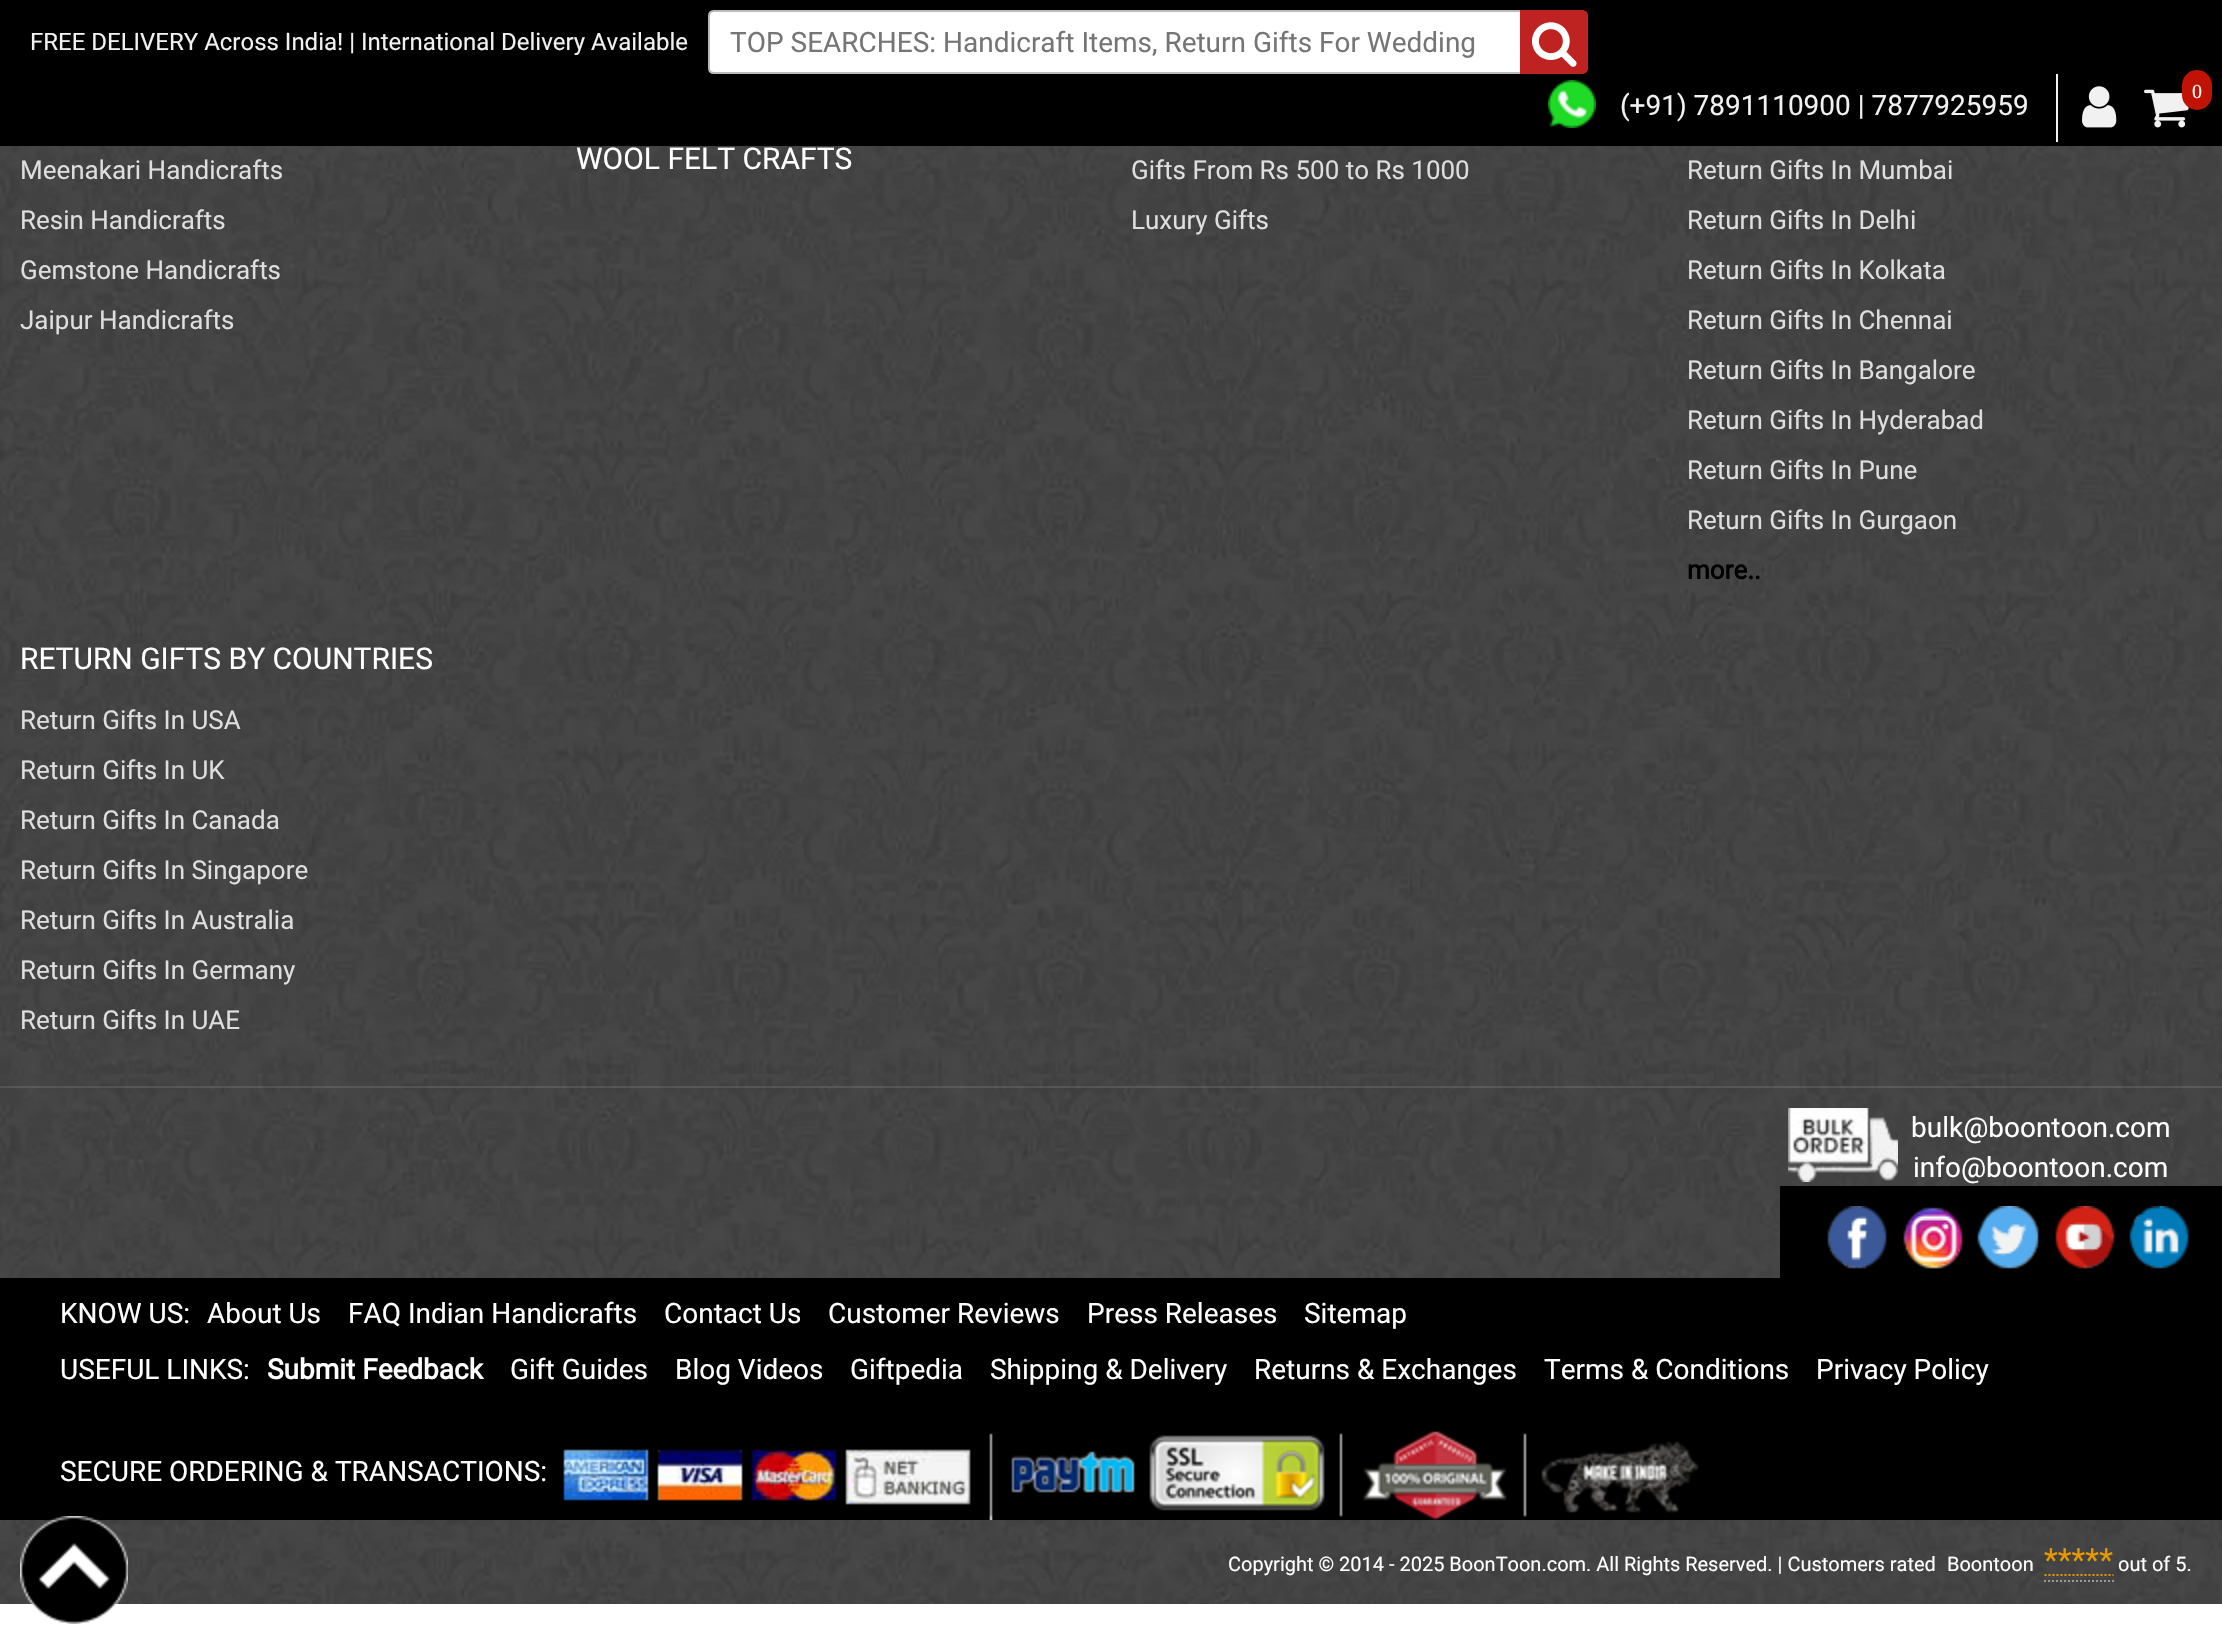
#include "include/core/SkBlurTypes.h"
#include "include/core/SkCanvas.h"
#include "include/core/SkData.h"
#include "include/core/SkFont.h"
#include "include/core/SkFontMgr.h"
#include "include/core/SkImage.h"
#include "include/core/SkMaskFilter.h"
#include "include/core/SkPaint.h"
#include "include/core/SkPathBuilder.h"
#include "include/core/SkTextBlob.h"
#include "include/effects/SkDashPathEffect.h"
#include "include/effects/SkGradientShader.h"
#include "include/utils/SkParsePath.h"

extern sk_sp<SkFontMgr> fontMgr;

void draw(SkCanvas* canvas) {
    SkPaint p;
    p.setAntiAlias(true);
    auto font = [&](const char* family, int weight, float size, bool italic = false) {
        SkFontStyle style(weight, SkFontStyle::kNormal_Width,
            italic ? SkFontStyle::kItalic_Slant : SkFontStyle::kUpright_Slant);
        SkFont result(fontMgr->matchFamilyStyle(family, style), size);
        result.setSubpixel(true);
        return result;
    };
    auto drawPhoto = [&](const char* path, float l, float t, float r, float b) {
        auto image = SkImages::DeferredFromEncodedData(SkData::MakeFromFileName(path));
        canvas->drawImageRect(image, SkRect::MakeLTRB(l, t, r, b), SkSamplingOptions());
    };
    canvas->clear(0xFFFFFFFF);
    p.setColor(0xFF000000);
    canvas->drawRect(SkRect::MakeLTRB(0, 0, 2222, 146), p);
    auto font1 = font("Roboto", 400, 24);
    p.setColor(0xFFF1F1F1);
    canvas->drawString("FREE DELIVERY Across India! | International Delivery Available", 30, 50, font1, p);
    p.setColor(0xFFFFFFFF);
    canvas->drawPath(SkPathBuilder().moveTo(714, 11).lineTo(1567, 11).lineTo(1567, 73).lineTo(714, 73).cubicTo(711, 73, 709, 71, 709, 68).lineTo(709, 16).cubicTo(709, 13, 711, 11, 714, 11).close().detach(), p);
    p.setStyle(SkPaint::kStroke_Style);
    p.setStrokeWidth(2);
    p.setColor(0xFFBABABA);
    canvas->drawPath(SkPathBuilder().moveTo(714, 11).lineTo(1567, 11).lineTo(1567, 73).lineTo(714, 73).cubicTo(711, 73, 709, 71, 709, 68).lineTo(709, 16).cubicTo(709, 13, 711, 11, 714, 11).close().detach(), p);
    auto font2 = font("Roboto", 400, 28);
    p.setStyle(SkPaint::kFill_Style);
    p.setColor(0xFF757575);
    canvas->drawString("TOP SEARCHES: Handicraft Items, Return Gifts For Wedding", 730, 52, font2, p);
    p.setColor(0xFFBE2321);
    canvas->drawPath(SkPathBuilder().moveTo(1520, 10).lineTo(1582, 10).cubicTo(1585.5f, 10, 1588, 12.5f, 1588, 16).lineTo(1588, 68).cubicTo(1588, 71.5f, 1585.5f, 74, 1582, 74).lineTo(1520, 74).close().detach(), p);
    drawPhoto("media/1.png", 1532, 22, 1577, 67);
    drawPhoto("media/2.png", 1548, 80, 1596, 128);
    p.setColor(0xFFF1F1F1);
    canvas->drawString("(+91) 7891110900 | 7877925959", 1620, 115, font2, p);
    canvas->drawRect(SkRect::MakeLTRB(2056, 74, 2058, 142), p);
    drawPhoto("media/3.png", 2082, 86, 2117, 128);
    drawPhoto("media/4.png", 2144, 89, 2189, 128);
    p.setColor(0xFFC01306);
    canvas->drawRoundRect(SkRect::MakeLTRB(2182, 70, 2212, 110), 15, 15, p);
    auto font3 = font("Liberation Serif", 400, 20);
    p.setColor(0xFFFFFFFF);
    canvas->drawString("0", 2192, 98, font3, p);
    drawPhoto("media/5.png", 0, 146, 2222, 1604);
    auto font4 = font("Roboto", 400, 26);
    p.setColor(0xFFDEDEDE);
    {
        const struct { const char* s; float x, y; } items[] = {
            {"Meenakari Handicrafts", 20, 179},
            {"Resin Handicrafts", 20, 229},
            {"Gemstone Handicrafts", 20, 279},
            {"Jaipur Handicrafts", 20, 329},
        };
        for (auto [s, x, y] : items) {
            canvas->drawString(s, x, y, font4, p);
        }
    }
    auto font5 = font("Roboto", 400, 30);
    p.setColor(0xFFFFFFFF);
    canvas->drawString("WOOL FELT CRAFTS", 576, 169, font5, p);
    p.setColor(0xFFDEDEDE);
    {
        const struct { const char* s; float x, y; } items[] = {
            {"Gifts From Rs 500 to Rs 1000", 1131, 179},
            {"Luxury Gifts", 1131, 229},
            {"Return Gifts In Mumbai", 1687, 179},
            {"Return Gifts In Delhi", 1687, 229},
            {"Return Gifts In Kolkata", 1687, 279},
            {"Return Gifts In Chennai", 1687, 329},
            {"Return Gifts In Bangalore", 1687, 379},
            {"Return Gifts In Hyderabad", 1687, 429},
            {"Return Gifts In Pune", 1687, 479},
            {"Return Gifts In Gurgaon", 1687, 529},
        };
        for (auto [s, x, y] : items) {
            canvas->drawString(s, x, y, font4, p);
        }
    }
    auto font6 = font("Roboto", 700, 26);
    p.setColor(0xFF000000);
    canvas->drawString("more..", 1687, 579, font6, p);
    p.setColor(0xFFFFFFFF);
    canvas->drawString("RETURN GIFTS BY COUNTRIES", 20, 669, font5, p);
    p.setColor(0xFFDEDEDE);
    {
        const struct { const char* s; float x, y; } items[] = {
            {"Return Gifts In USA", 20, 729},
            {"Return Gifts In UK", 20, 779},
            {"Return Gifts In Canada", 20, 829},
            {"Return Gifts In Singapore", 20, 879},
            {"Return Gifts In Australia", 20, 929},
            {"Return Gifts In Germany", 20, 979},
            {"Return Gifts In UAE", 20, 1029},
        };
        for (auto [s, x, y] : items) {
            canvas->drawString(s, x, y, font4, p);
        }
    }
    p.setColor(0x1AFFFFFF);
    canvas->drawRect(SkRect::MakeLTRB(0, 1086, 2222, 1088), p);
    drawPhoto("media/6.png", 1788, 1108, 1898, 1182);
    p.setColor(0xFFFFFFFF);
    canvas->drawString("bulk@boontoon.com", 1911, 1137, font2, p);
    canvas->drawString("info@boontoon.com", 1913, 1177, font2, p);
    p.setColor(0xFF000000);
    canvas->drawRect(SkRect::MakeLTRB(1780, 1186, 2222, 1278), p);
    drawPhoto("media/7.png", 1827, 1206, 2189, 1269);
    canvas->drawRect(SkRect::MakeLTRB(0, 1278, 2222, 1520), p);
    p.setColor(0xFFFFFFFF);
    {
        const struct { const char* s; float x, y; } items[] = {
            {"KNOW US:", 60, 1323},
            {"About Us", 207, 1323},
            {"FAQ Indian Handicrafts", 348, 1323},
            {"Contact Us", 664, 1323},
            {"Customer Reviews", 828, 1323},
            {"Press Releases", 1087, 1323},
            {"Sitemap", 1304, 1323},
            {"USEFUL LINKS:", 60, 1379},
        };
        for (auto [s, x, y] : items) {
            canvas->drawString(s, x, y, font2, p);
        }
    }
    auto font7 = font("Roboto", 700, 28);
    canvas->drawString("Submit Feedback", 267, 1379, font7, p);
    {
        const struct { const char* s; float x, y; } items[] = {
            {"Gift Guides", 510, 1379},
            {"Blog Videos", 675, 1379},
            {"Giftpedia", 850, 1379},
            {"Shipping & Delivery", 990, 1379},
            {"Returns & Exchanges", 1254, 1379},
            {"Terms & Conditions", 1544, 1379},
            {"Privacy Policy", 1816, 1379},
            {"SECURE ORDERING & TRANSACTIONS:", 60, 1481},
        };
        for (auto [s, x, y] : items) {
            canvas->drawString(s, x, y, font2, p);
        }
    }
    drawPhoto("media/8.png", 563, 1431, 1699, 1520);
    auto font8 = font("Roboto", 400, 20);
    canvas->drawString("Copyright © 2014 - 2025 BoonToon.com. All Rights Reserved. | Customers rated", 1228, 1571, font8, p);
    canvas->drawString("Boontoon", 1947, 1571, font8, p);
    auto font9 = font("Roboto", 400, 32);
    p.setColor(0xFFE89A00);
    canvas->drawString("*****", 2044, 1571, font9, p);
    p.setStyle(SkPaint::kStroke_Style);
    p.setColor(0xFF999999);
    p.setPathEffect(SkDashPathEffect::Make({{2, 2}}, 0));
    canvas->drawPath(SkPathBuilder().moveTo(2044, 1581).lineTo(2114, 1581).detach(), p);
    p.setPathEffect(nullptr);
    p.setColor(0xFFE89A00);
    p.setPathEffect(SkDashPathEffect::Make({{2, 2}}, 0));
    canvas->drawPath(SkPathBuilder().moveTo(2044.5f, 1575).lineTo(2113.5f, 1575).detach(), p);
    p.setPathEffect(nullptr);
    p.setStyle(SkPaint::kFill_Style);
    p.setColor(0xFFFFFFFF);
    canvas->drawString("out of 5.", 2118, 1571, font8, p);
    drawPhoto("media/9.png", 20, 1516, 128, 1624);
}
